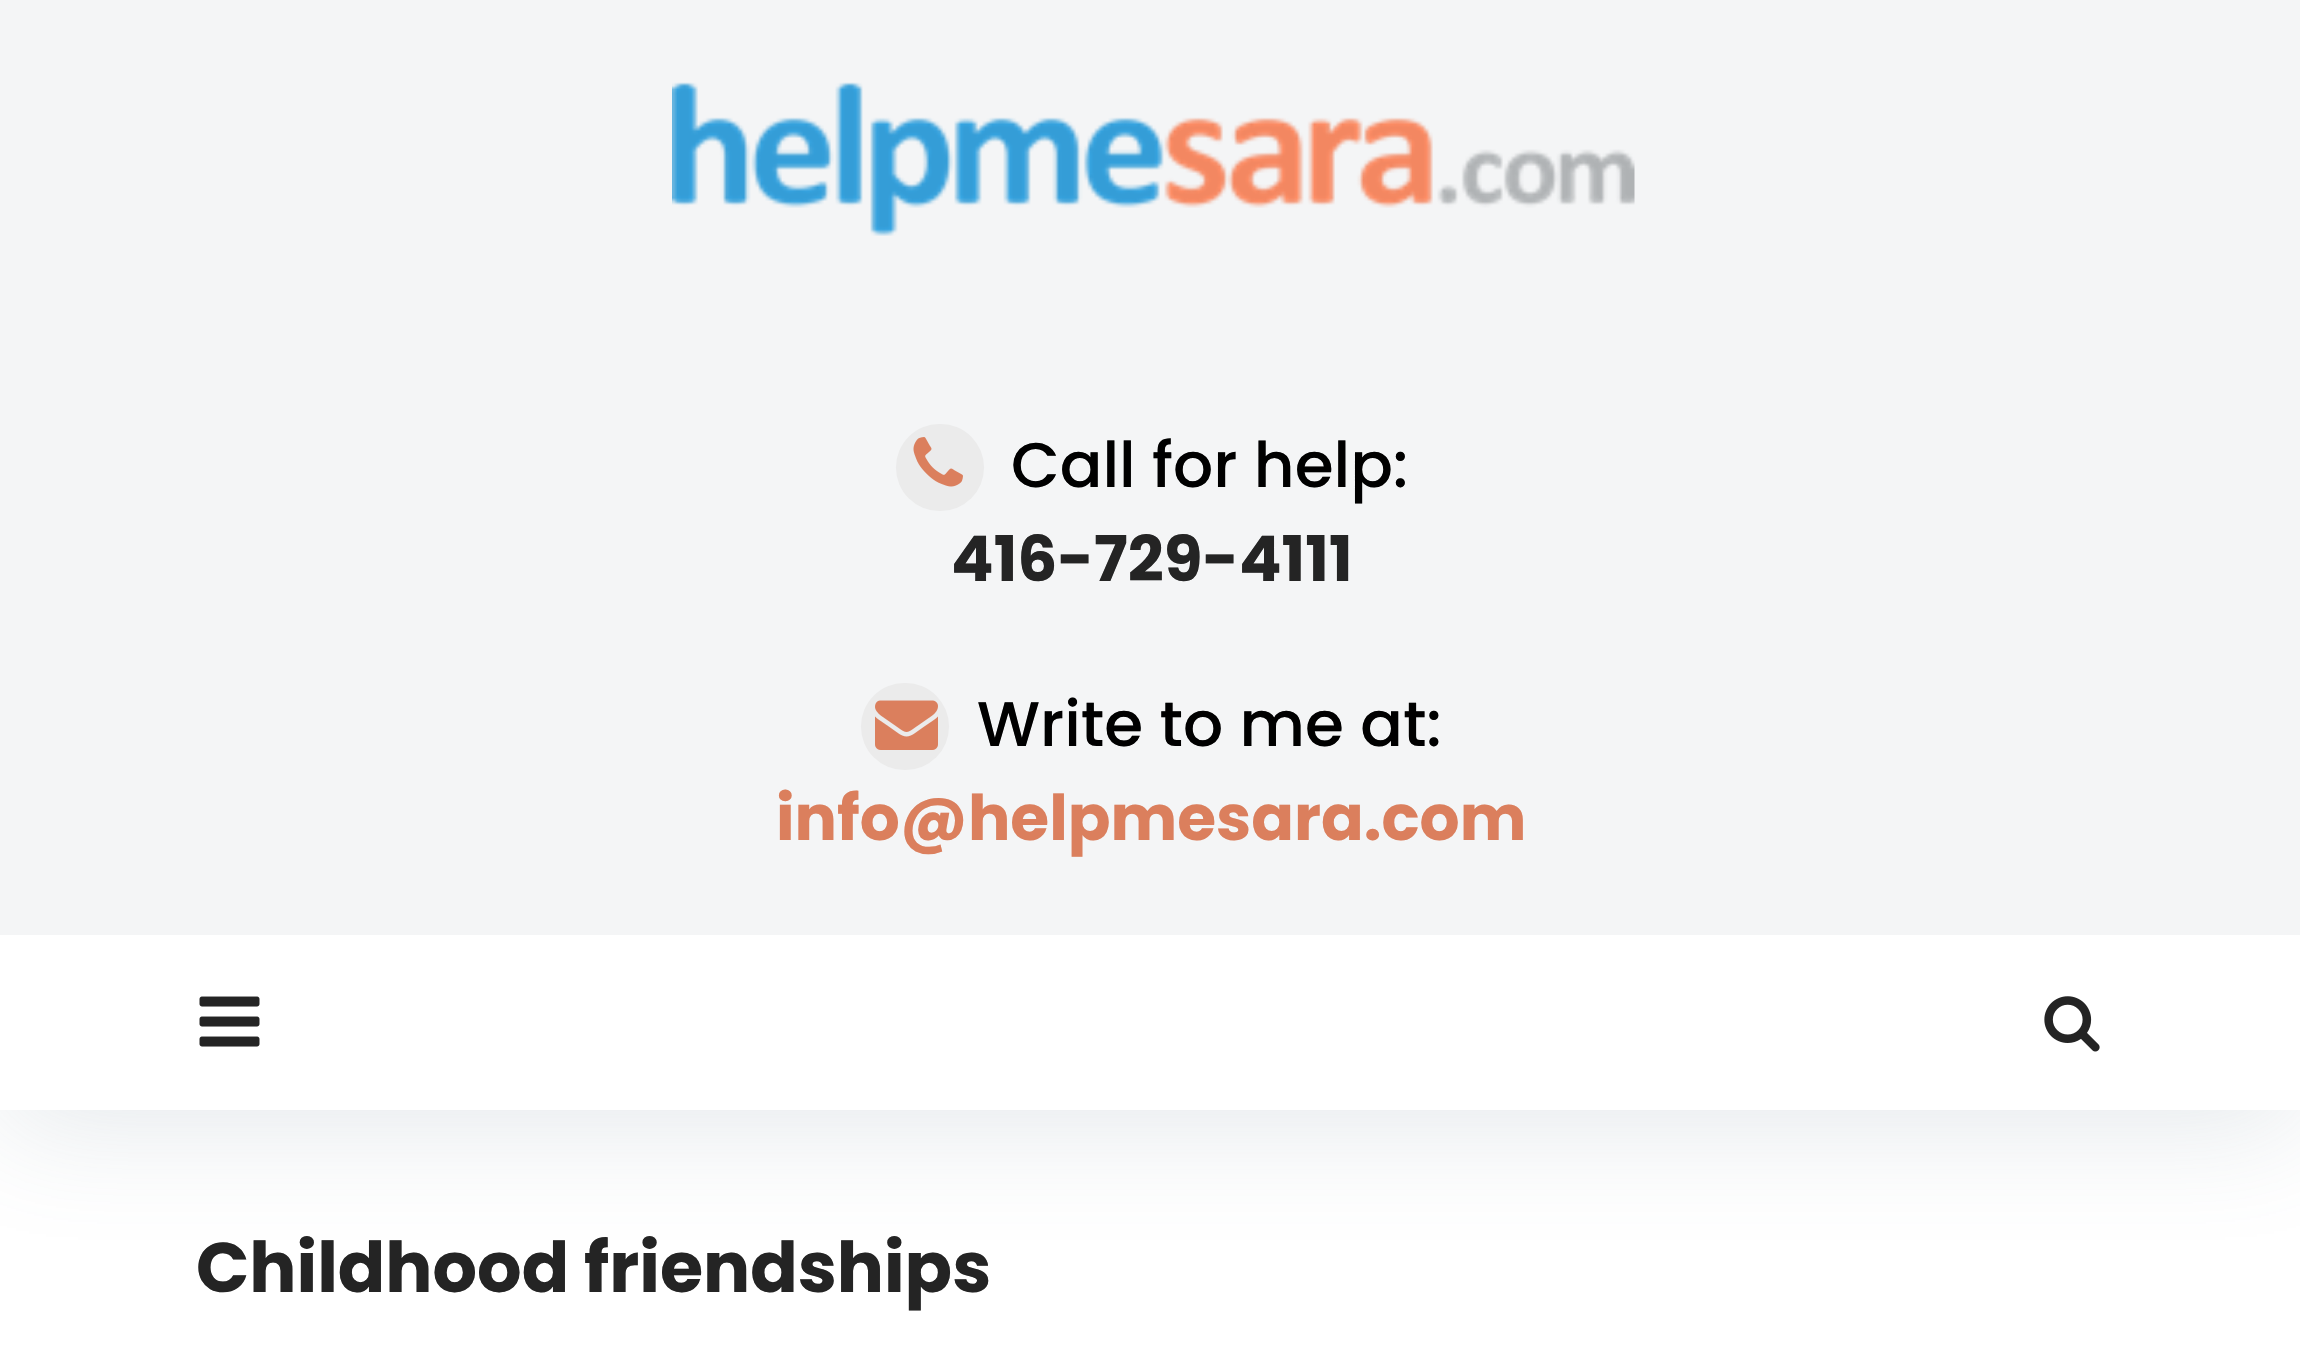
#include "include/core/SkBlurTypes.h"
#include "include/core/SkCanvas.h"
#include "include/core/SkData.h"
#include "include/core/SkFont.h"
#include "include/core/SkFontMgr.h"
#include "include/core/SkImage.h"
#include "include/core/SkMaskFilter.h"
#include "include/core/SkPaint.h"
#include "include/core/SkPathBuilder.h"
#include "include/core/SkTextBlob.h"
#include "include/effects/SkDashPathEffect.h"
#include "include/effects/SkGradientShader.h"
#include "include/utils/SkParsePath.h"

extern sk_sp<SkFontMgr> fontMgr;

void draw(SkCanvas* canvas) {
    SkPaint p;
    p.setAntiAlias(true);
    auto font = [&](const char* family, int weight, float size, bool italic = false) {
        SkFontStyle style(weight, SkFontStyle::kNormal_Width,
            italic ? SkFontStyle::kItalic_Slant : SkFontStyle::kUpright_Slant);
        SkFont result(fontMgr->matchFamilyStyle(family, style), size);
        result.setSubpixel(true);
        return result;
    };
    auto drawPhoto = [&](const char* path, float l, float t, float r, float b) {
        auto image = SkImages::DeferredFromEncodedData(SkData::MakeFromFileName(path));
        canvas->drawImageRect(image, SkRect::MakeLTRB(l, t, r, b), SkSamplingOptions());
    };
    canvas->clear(0xFFFFFFFF);
    p.setColor(0x2B677A8D);
    p.setMaskFilter(SkMaskFilter::MakeBlur(kNormal_SkBlurStyle, 56));
    canvas->drawRect(SkRect::MakeLTRB(0, 18, 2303, 1127), p);
    p.setMaskFilter(nullptr);
    p.setColor(0xFFF4F5F6);
    canvas->drawRect(SkRect::MakeLTRB(0, 0, 2300, 935), p);
    drawPhoto("media/1.png", 672, 82, 1635, 236);
    p.setColor(0xFFEBEBEB);
    canvas->drawRoundRect(SkRect::MakeLTRB(896, 424, 984, 511), 43.5f, 43.5f, p);
    drawPhoto("media/2.png", 913, 437, 963, 487);
    auto font1 = font("Poppins", 500, 63);
    p.setColor(0xFF000000);
    canvas->drawString("Call for help:", 1011, 487, font1, p);
    auto font2 = font("Poppins", 700, 63);
    p.setColor(0xFF242424);
    canvas->drawString("416-729-4111", 951, 581, font2, p);
    p.setColor(0xFFEBEBEB);
    canvas->drawRoundRect(SkRect::MakeLTRB(861, 683, 949, 770), 43.5f, 43.5f, p);
    drawPhoto("media/3.png", 875, 700, 938, 750);
    p.setColor(0xFF000000);
    canvas->drawString("Write to me at:", 977, 746, font1, p);
    p.setColor(0xFFDB7F5D);
    canvas->drawString("info@helpmesara.com", 776, 840, font2, p);
    p.setColor(0xFFFFFFFF);
    canvas->drawRect(SkRect::MakeLTRB(0, 935, 2300, 1110), p);
    drawPhoto("media/4.png", 199, 996, 260, 1047);
    drawPhoto("media/5.png", 2044, 996, 2100, 1052);
    auto font3 = font("Poppins", 700, 70);
    p.setColor(0xFF242424);
    canvas->drawString("Childhood friendships", 196, 1292, font3, p);
}
